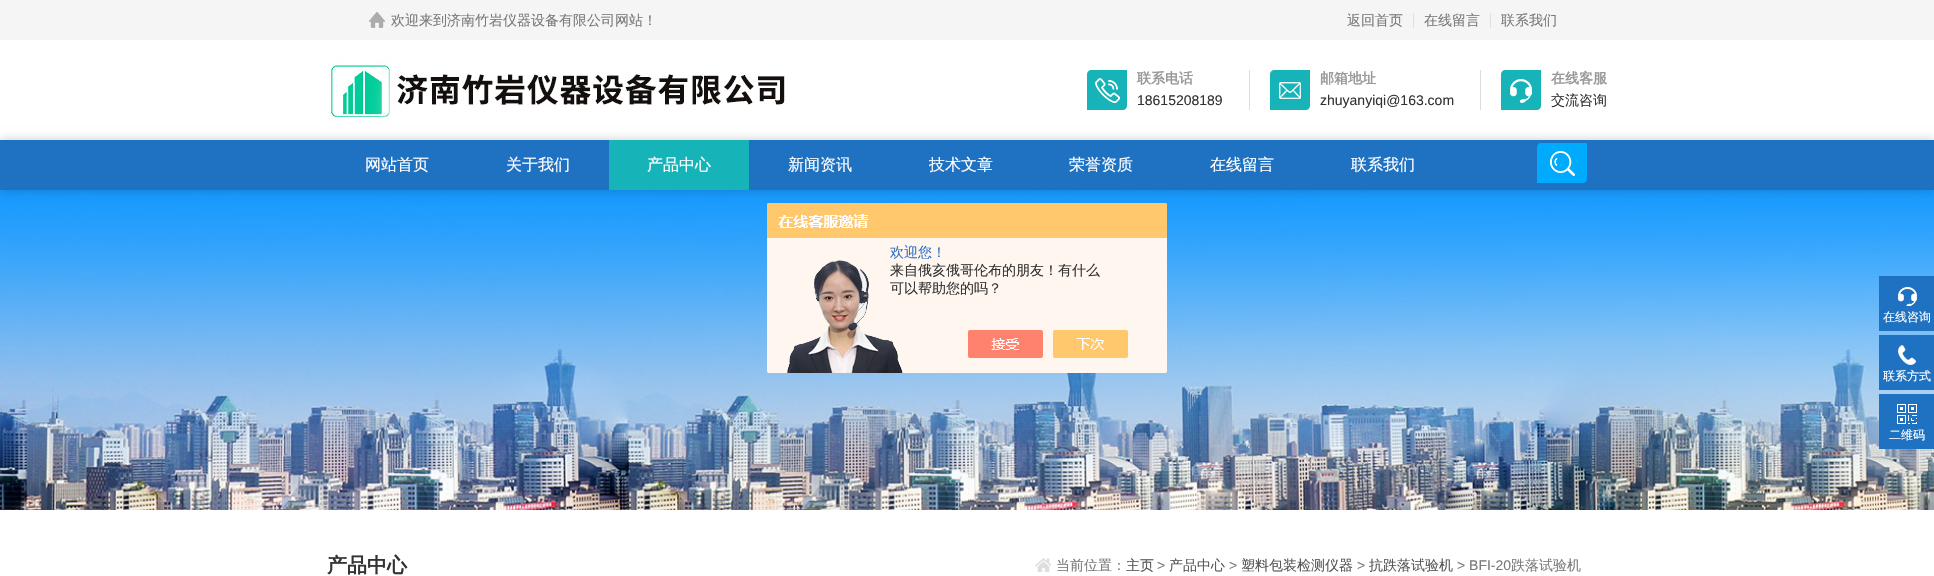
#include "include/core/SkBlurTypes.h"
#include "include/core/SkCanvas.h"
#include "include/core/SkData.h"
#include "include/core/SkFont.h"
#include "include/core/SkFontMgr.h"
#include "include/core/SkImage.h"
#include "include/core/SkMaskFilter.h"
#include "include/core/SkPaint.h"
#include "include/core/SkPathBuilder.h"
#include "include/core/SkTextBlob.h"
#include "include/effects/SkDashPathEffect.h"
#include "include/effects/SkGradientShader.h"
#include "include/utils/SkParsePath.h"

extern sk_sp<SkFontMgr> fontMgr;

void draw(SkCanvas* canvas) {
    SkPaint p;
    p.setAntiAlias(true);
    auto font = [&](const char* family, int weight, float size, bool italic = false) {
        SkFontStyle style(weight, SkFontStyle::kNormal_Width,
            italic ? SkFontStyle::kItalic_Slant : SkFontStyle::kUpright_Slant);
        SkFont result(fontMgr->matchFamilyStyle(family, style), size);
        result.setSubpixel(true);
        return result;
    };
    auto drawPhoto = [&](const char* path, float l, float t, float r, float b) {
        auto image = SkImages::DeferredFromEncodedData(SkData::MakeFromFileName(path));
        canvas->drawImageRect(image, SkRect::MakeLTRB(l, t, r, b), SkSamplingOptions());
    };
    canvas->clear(0xFFFFFFFF);
    p.setColor(0xFFF5F5F5);
    canvas->drawRect(SkRect::MakeLTRB(0, 0, 1934, 40), p);
    drawPhoto("media/1.png", 369, 12, 385, 28);
    auto font1 = font("WenQuanYi Zen Hei", 500, 14);
    p.setColor(0xFF797979);
    canvas->drawString("欢迎来到济南竹岩仪器设备有限公司网站！", 391, 25, font1, p);
    canvas->drawString("返回首页", 1347, 25, font1, p);
    p.setColor(0xFFDFDFDF);
    canvas->drawRect(SkRect::MakeLTRB(1413, 13, 1414, 28), p);
    p.setColor(0xFF797979);
    canvas->drawString("在线留言", 1424, 25, font1, p);
    p.setColor(0xFFDFDFDF);
    canvas->drawRect(SkRect::MakeLTRB(1490, 13, 1491, 28), p);
    p.setColor(0xFF797979);
    canvas->drawString("联系我们", 1501, 25, font1, p);
    drawPhoto("media/2.png", 327, 58, 789, 122);
    p.setColor(0xFFDDDDDD);
    canvas->drawRect(SkRect::MakeLTRB(1249, 70, 1250, 110), p);
    p.setColor(0xFF16B4B9);
    canvas->drawPath(SkPathBuilder().moveTo(1091, 70).lineTo(1127, 70).lineTo(1127, 106).cubicTo(1127, 108, 1125, 110, 1123, 110).lineTo(1087, 110).lineTo(1087, 74).cubicTo(1087, 72, 1089, 70, 1091, 70).close().detach(), p);
    drawPhoto("media/3.png", 1095, 78, 1120, 103);
    auto font2 = font("WenQuanYi Zen Hei", 700, 14);
    p.setColor(0xFF999999);
    canvas->drawString("联系电话", 1137, 83, font2, p);
    auto font3 = font("Liberation Sans", 400, 14);
    p.setColor(0xFF333333);
    canvas->drawString("18615208189", 1137, 105, font3, p);
    p.setColor(0xFFDDDDDD);
    canvas->drawRect(SkRect::MakeLTRB(1480, 70, 1481, 110), p);
    p.setColor(0xFF16B4B9);
    canvas->drawPath(SkPathBuilder().moveTo(1274, 70).lineTo(1310, 70).lineTo(1310, 106).cubicTo(1310, 108, 1308, 110, 1306, 110).lineTo(1270, 110).lineTo(1270, 74).cubicTo(1270, 72, 1272, 70, 1274, 70).close().detach(), p);
    drawPhoto("media/4.png", 1279, 82, 1301, 99);
    p.setColor(0xFF999999);
    canvas->drawString("邮箱地址", 1320, 83, font2, p);
    p.setColor(0xFF333333);
    canvas->drawString("zhuyanyiqi@163.com", 1320, 105, font3, p);
    p.setColor(0xFF16B4B9);
    canvas->drawPath(SkPathBuilder().moveTo(1505, 70).lineTo(1541, 70).lineTo(1541, 106).cubicTo(1541, 108, 1539, 110, 1537, 110).lineTo(1501, 110).lineTo(1501, 74).cubicTo(1501, 72, 1503, 70, 1505, 70).close().detach(), p);
    drawPhoto("media/5.png", 1510, 79, 1532, 103);
    p.setColor(0xFF999999);
    canvas->drawString("在线客服", 1551, 83, font2, p);
    p.setColor(0xFF333333);
    canvas->drawString("交流咨询", 1551, 105, font1, p);
    drawPhoto("media/7.png", 0, 190, 1934, 510);
    p.setColor(0x33000000);
    p.setMaskFilter(SkMaskFilter::MakeBlur(kNormal_SkBlurStyle, 5));
    canvas->drawRect(SkRect::MakeLTRB(0, 140, 1934, 190), p);
    p.setMaskFilter(nullptr);
    p.setColor(0xFF1F71C2);
    canvas->drawRect(SkRect::MakeLTRB(0, 140, 1934, 190), p);
    auto font4 = font("WenQuanYi Zen Hei", 500, 16);
    p.setColor(0xFFFFFFFF);
    canvas->drawString("网站首页", 365, 170, font4, p);
    canvas->drawString("关于我们", 506, 170, font4, p);
    p.setColor(0xFF16B4B9);
    canvas->drawRect(SkRect::MakeLTRB(609, 140, 749, 190), p);
    p.setColor(0xFFFFFFFF);
    {
        const struct { const char* s; float x, y; } items[] = {
            {"产品中心", 647, 170},
            {"新闻资讯", 788, 170},
            {"技术文章", 929, 170},
            {"荣誉资质", 1069, 170},
            {"在线留言", 1210, 170},
            {"联系我们", 1351, 170},
        };
        for (auto [s, x, y] : items) {
            canvas->drawString(s, x, y, font4, p);
        }
    }
    p.setColor(0xFF00ABFD);
    canvas->drawPath(SkPathBuilder().moveTo(1541, 143).lineTo(1587, 143).lineTo(1587, 179).cubicTo(1587, 181, 1585, 183, 1583, 183).lineTo(1537, 183).lineTo(1537, 147).cubicTo(1537, 145, 1539, 143, 1541, 143).close().detach(), p);
    drawPhoto("media/6.png", 1550, 151, 1575, 176);
    drawPhoto("media/8.png", 767, 203, 1167, 373);
    p.setColor(0xFF2E6EC6);
    canvas->drawString("欢迎您！", 890, 257, font1, p);
    p.setColor(0xFF333333);
    canvas->drawString("来自俄亥俄哥伦布的朋友！有什么", 890, 275, font1, p);
    canvas->drawString("可以帮助您的吗？", 890, 293, font1, p);
    p.setColor(0xFF1F71C2);
    canvas->drawRect(SkRect::MakeLTRB(1879, 276, 1934, 331), p);
    drawPhoto("media/9.png", 1898, 287, 1917, 306);
    auto font5 = font("WenQuanYi Zen Hei", 500, 12);
    p.setColor(0xFFFFFFFF);
    canvas->drawString("在线咨询", 1883, 321, font5, p);
    p.setColor(0xFF1F71C2);
    canvas->drawRect(SkRect::MakeLTRB(1879, 335, 1934, 390), p);
    drawPhoto("media/10.png", 1898, 345, 1916, 365);
    p.setColor(0xFFFFFFFF);
    canvas->drawString("联系方式", 1883, 380, font5, p);
    p.setColor(0xFF1F71C2);
    canvas->drawRect(SkRect::MakeLTRB(1879, 394, 1934, 449), p);
    drawPhoto("media/11.png", 1897, 404, 1917, 424);
    p.setColor(0xFFFFFFFF);
    canvas->drawString("二维码", 1889, 439, font5, p);
    auto font6 = font("WenQuanYi Zen Hei", 700, 20);
    p.setColor(0xFF333333);
    canvas->drawString("产品中心", 327, 572, font6, p);
    drawPhoto("media/12.png", 1035, 558, 1051, 572);
    p.setColor(0xFF797979);
    canvas->drawString("当前位置：", 1056, 570, font1, p);
    p.setColor(0xFF555555);
    canvas->drawString("主页", 1126, 570, font1, p);
    p.setColor(0xFF797979);
    canvas->drawString(">", 1157, 570, font3, p);
    p.setColor(0xFF555555);
    canvas->drawString("产品中心", 1169, 570, font1, p);
    p.setColor(0xFF797979);
    canvas->drawString(">", 1229, 570, font3, p);
    p.setColor(0xFF555555);
    canvas->drawString("塑料包装检测仪器", 1241, 570, font1, p);
    p.setColor(0xFF797979);
    canvas->drawString(">", 1357, 570, font3, p);
    p.setColor(0xFF555555);
    canvas->drawString("抗跌落试验机", 1369, 570, font1, p);
    p.setColor(0xFF797979);
    canvas->drawString("> BFI-20", 1457, 570, font3, p);
    canvas->drawString("跌落试验机", 1511, 570, font1, p);
}
